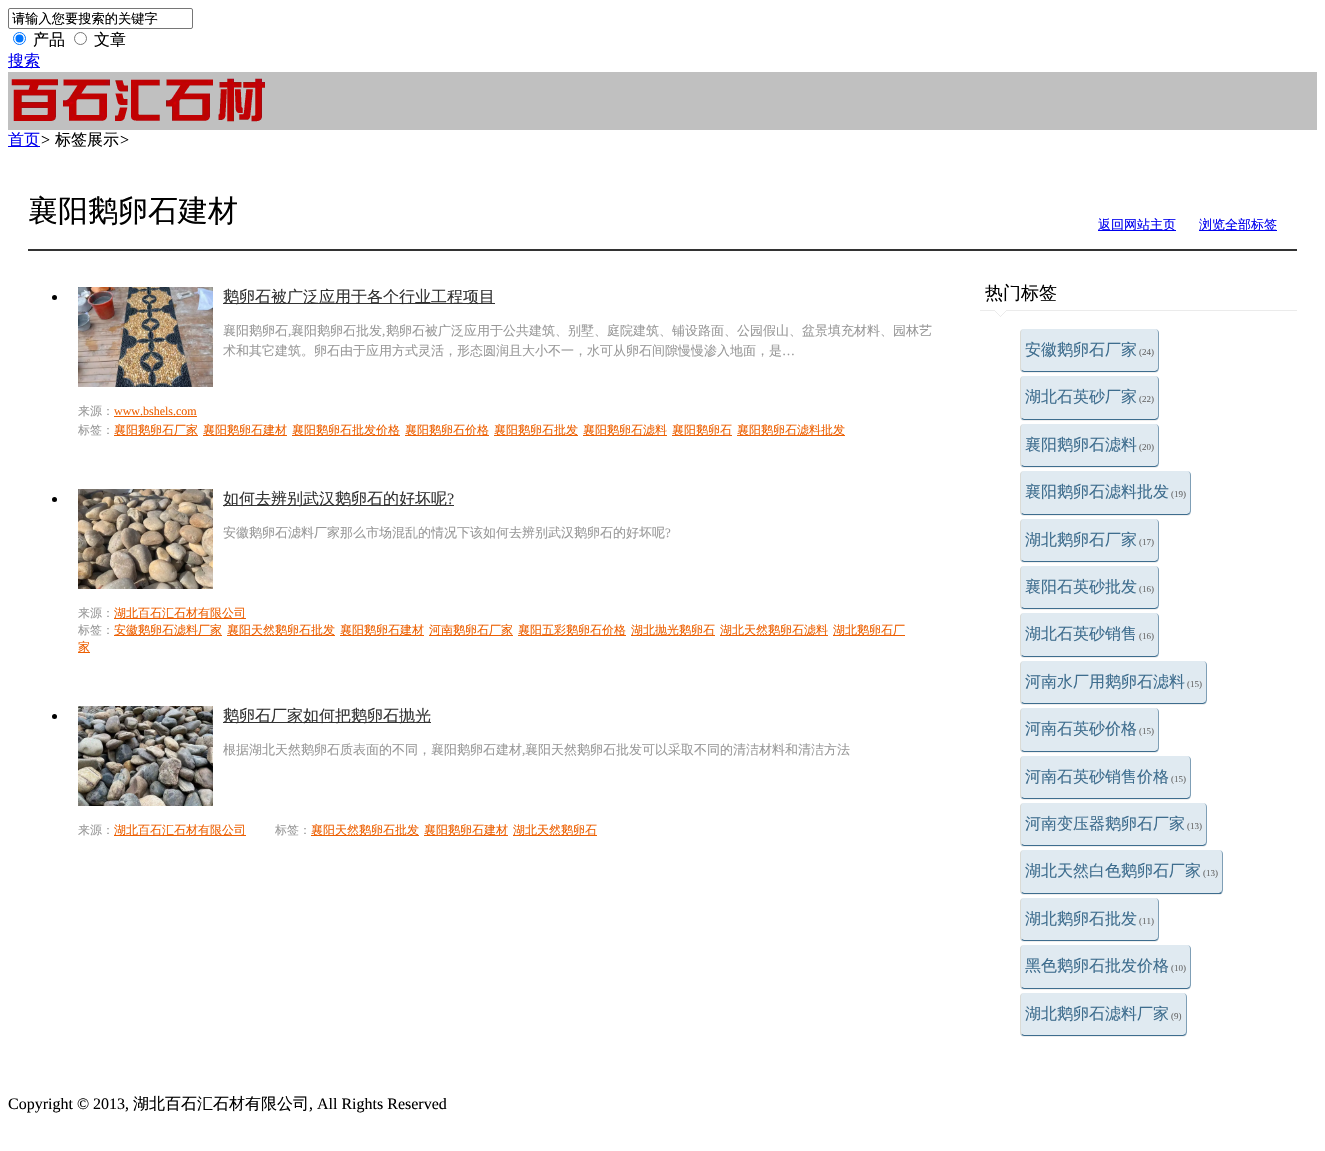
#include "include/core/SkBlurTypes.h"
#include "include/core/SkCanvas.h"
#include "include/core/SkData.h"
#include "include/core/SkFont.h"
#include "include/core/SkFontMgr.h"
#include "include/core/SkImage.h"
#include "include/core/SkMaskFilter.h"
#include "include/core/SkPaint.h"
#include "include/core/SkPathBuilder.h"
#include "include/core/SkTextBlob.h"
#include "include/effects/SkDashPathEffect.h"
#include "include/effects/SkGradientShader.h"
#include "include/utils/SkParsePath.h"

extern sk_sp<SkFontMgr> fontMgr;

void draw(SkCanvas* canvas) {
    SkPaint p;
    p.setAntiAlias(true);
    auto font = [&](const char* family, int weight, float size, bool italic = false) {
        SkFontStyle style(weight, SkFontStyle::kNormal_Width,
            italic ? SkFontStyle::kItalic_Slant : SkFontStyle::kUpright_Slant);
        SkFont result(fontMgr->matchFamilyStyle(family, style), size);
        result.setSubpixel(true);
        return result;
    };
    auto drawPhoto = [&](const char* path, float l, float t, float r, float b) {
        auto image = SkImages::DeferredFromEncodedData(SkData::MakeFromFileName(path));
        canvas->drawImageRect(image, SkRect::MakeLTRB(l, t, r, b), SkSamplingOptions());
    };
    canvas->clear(0xFFFFFFFF);
    p.setStyle(SkPaint::kStroke_Style);
    p.setStrokeWidth(1);
    p.setColor(0xFF767676);
    canvas->drawRoundRect(SkRect::MakeLTRB(8.5f, 8.5f, 192.5f, 28.5f), 1.5f, 1.5f, p);
    auto font1 = font("WenQuanYi Zen Hei", 500, 13.25f);
    p.setStyle(SkPaint::kFill_Style);
    p.setColor(0xFF000000);
    canvas->drawString("请输入您要搜索的关键字", 12, 23, font1, p);
    p.setStyle(SkPaint::kStroke_Style);
    p.setColor(0xFF0075FF);
    canvas->drawCircle(19.5f, 38.5f, 6, p);
    p.setStyle(SkPaint::kFill_Style);
    canvas->drawCircle(19.5f, 38.5f, 4, p);
    auto font2 = font("WenQuanYi Zen Hei", 500, 16);
    p.setColor(0xFF000000);
    canvas->drawString("产品", 33, 45, font2, p);
    p.setStyle(SkPaint::kStroke_Style);
    p.setColor(0xFF767676);
    canvas->drawCircle(80.5f, 38.5f, 6, p);
    p.setStyle(SkPaint::kFill_Style);
    p.setColor(0xFF000000);
    canvas->drawString("文章", 94, 45, font2, p);
    p.setColor(0xFF0000EE);
    canvas->drawRect(SkRect::MakeLTRB(8, 67, 40, 68), p);
    canvas->drawString("搜索", 8, 66, font2, p);
    p.setColor(0xFFC0C0C0);
    canvas->drawRect(SkRect::MakeLTRB(8, 72, 1317, 130), p);
    drawPhoto("media/1.png", 11, 78, 265, 122);
    p.setColor(0xFF0000EE);
    canvas->drawRect(SkRect::MakeLTRB(8, 146, 40, 147), p);
    canvas->drawString("首页", 8, 145, font2, p);
    auto font3 = font("Liberation Serif", 400, 16, true);
    p.setColor(0xFF000000);
    canvas->drawString(">", 40, 145, font3, p);
    canvas->drawString("标签展示", 55, 145, font2, p);
    canvas->drawString(">", 119, 145, font3, p);
    p.setColor(0xFF333333);
    canvas->drawRect(SkRect::MakeLTRB(28, 249, 1297, 251), p);
    auto font4 = font("WenQuanYi Zen Hei", 500, 30);
    p.setColor(0xFF000000);
    canvas->drawString("襄阳鹅卵石建材", 28, 221, font4, p);
    p.setColor(0xFF0000EE);
    canvas->drawRect(SkRect::MakeLTRB(1098, 230, 1176, 231), p);
    auto font5 = font("WenQuanYi Zen Hei", 500, 13);
    canvas->drawString("返回网站主页", 1098, 229, font5, p);
    canvas->drawRect(SkRect::MakeLTRB(1199, 230, 1277, 231), p);
    canvas->drawString("浏览全部标签", 1199, 229, font5, p);
    p.setColor(0xFF000000);
    canvas->drawCircle(54.5f, 297.5f, 2.5f, p);
    drawPhoto("media/2.png", 78, 287, 213, 387);
    p.setColor(0xFF333333);
    canvas->drawRect(SkRect::MakeLTRB(223, 303, 495, 304), p);
    canvas->drawString("鹅卵石被广泛应用于各个行业工程项目", 223, 302, font2, p);
    p.setColor(0xFF999999);
    canvas->drawString("襄阳鹅卵石", 223, 335, font5, p);
    auto font6 = font("Liberation Serif", 400, 13);
    canvas->drawString(",", 288, 335, font6, p);
    canvas->drawString("襄阳鹅卵石批发", 291, 335, font5, p);
    canvas->drawString(",", 382, 335, font6, p);
    canvas->drawString("鹅卵石被广泛应用于公共建筑、别墅、庭院建筑、铺设路面、公园假山、盆景填充材料、园林艺", 386, 335, font5, p);
    canvas->drawString("术和其它建筑。卵石由于应用方式灵活，形态圆润且大小不一，水可从卵石间隙慢慢渗入地面，是", 223, 355, font5, p);
    canvas->drawString("…", 782, 355, font6, p);
    auto font7 = font("WenQuanYi Zen Hei", 500, 12);
    canvas->drawString("来源：", 78, 415, font7, p);
    auto font8 = font("Liberation Serif", 400, 12);
    p.setColor(0xFFED5F01);
    canvas->drawString("www.bshels.com", 114, 415, font8, p);
    canvas->drawRect(SkRect::MakeLTRB(114, 416, 197, 417), p);
    p.setColor(0xFF999999);
    canvas->drawString("标签：", 78, 434, font7, p);
    p.setColor(0xFFED5F01);
    canvas->drawRect(SkRect::MakeLTRB(114, 435, 198, 436), p);
    canvas->drawString("襄阳鹅卵石厂家", 114, 434, font7, p);
    canvas->drawRect(SkRect::MakeLTRB(203, 435, 287, 436), p);
    canvas->drawString("襄阳鹅卵石建材", 203, 434, font7, p);
    canvas->drawRect(SkRect::MakeLTRB(292, 435, 400, 436), p);
    canvas->drawString("襄阳鹅卵石批发价格", 292, 434, font7, p);
    canvas->drawRect(SkRect::MakeLTRB(405, 435, 489, 436), p);
    canvas->drawString("襄阳鹅卵石价格", 405, 434, font7, p);
    canvas->drawRect(SkRect::MakeLTRB(494, 435, 578, 436), p);
    canvas->drawString("襄阳鹅卵石批发", 494, 434, font7, p);
    canvas->drawRect(SkRect::MakeLTRB(583, 435, 667, 436), p);
    canvas->drawString("襄阳鹅卵石滤料", 583, 434, font7, p);
    canvas->drawRect(SkRect::MakeLTRB(672, 435, 732, 436), p);
    canvas->drawString("襄阳鹅卵石", 672, 434, font7, p);
    canvas->drawRect(SkRect::MakeLTRB(737, 435, 845, 436), p);
    canvas->drawString("襄阳鹅卵石滤料批发", 737, 434, font7, p);
    p.setColor(0xFF000000);
    canvas->drawCircle(54.5f, 499.5f, 2.5f, p);
    drawPhoto("media/3.png", 78, 489, 213, 589);
    p.setColor(0xFF333333);
    canvas->drawRect(SkRect::MakeLTRB(223, 505, 454, 506), p);
    canvas->drawString("如何去辨别武汉鹅卵石的好坏呢", 223, 504, font2, p);
    auto font9 = font("Liberation Serif", 400, 16);
    canvas->drawString("?", 447, 504, font9, p);
    p.setColor(0xFF999999);
    canvas->drawString("安徽鹅卵石滤料厂家那么市场混乱的情况下该如何去辨别武汉鹅卵石的好坏呢", 223, 537, font5, p);
    canvas->drawString("?", 665, 537, font6, p);
    canvas->drawString("来源：", 78, 617, font7, p);
    p.setColor(0xFFED5F01);
    canvas->drawRect(SkRect::MakeLTRB(114, 618, 246, 619), p);
    canvas->drawString("湖北百石汇石材有限公司", 114, 617, font7, p);
    p.setColor(0xFF999999);
    canvas->drawString("标签：", 78, 634, font7, p);
    p.setColor(0xFFED5F01);
    canvas->drawRect(SkRect::MakeLTRB(114, 635, 222, 636), p);
    canvas->drawString("安徽鹅卵石滤料厂家", 114, 634, font7, p);
    canvas->drawRect(SkRect::MakeLTRB(227, 635, 335, 636), p);
    canvas->drawString("襄阳天然鹅卵石批发", 227, 634, font7, p);
    canvas->drawRect(SkRect::MakeLTRB(340, 635, 424, 636), p);
    canvas->drawString("襄阳鹅卵石建材", 340, 634, font7, p);
    canvas->drawRect(SkRect::MakeLTRB(429, 635, 513, 636), p);
    canvas->drawString("河南鹅卵石厂家", 429, 634, font7, p);
    canvas->drawRect(SkRect::MakeLTRB(518, 635, 626, 636), p);
    canvas->drawString("襄阳五彩鹅卵石价格", 518, 634, font7, p);
    canvas->drawRect(SkRect::MakeLTRB(631, 635, 715, 636), p);
    canvas->drawString("湖北抛光鹅卵石", 631, 634, font7, p);
    canvas->drawRect(SkRect::MakeLTRB(720, 635, 828, 636), p);
    canvas->drawString("湖北天然鹅卵石滤料", 720, 634, font7, p);
    canvas->drawRect(SkRect::MakeLTRB(833, 635, 905, 636), p);
    canvas->drawString("湖北鹅卵石厂", 833, 634, font7, p);
    canvas->drawRect(SkRect::MakeLTRB(78, 652, 90, 653), p);
    canvas->drawString("家", 78, 651, font7, p);
    p.setColor(0xFF000000);
    canvas->drawCircle(54.5f, 716.5f, 2.5f, p);
    drawPhoto("media/4.png", 78, 706, 213, 806);
    p.setColor(0xFF333333);
    canvas->drawRect(SkRect::MakeLTRB(223, 722, 431, 723), p);
    canvas->drawString("鹅卵石厂家如何把鹅卵石抛光", 223, 721, font2, p);
    p.setColor(0xFF999999);
    canvas->drawString("根据湖北天然鹅卵石质表面的不同，襄阳鹅卵石建材", 223, 754, font5, p);
    canvas->drawString(",", 522, 754, font6, p);
    canvas->drawString("襄阳天然鹅卵石批发可以采取不同的清洁材料和清洁方法", 525, 754, font5, p);
    canvas->drawString("来源：", 78, 834, font7, p);
    p.setColor(0xFFED5F01);
    canvas->drawRect(SkRect::MakeLTRB(114, 835, 246, 836), p);
    canvas->drawString("湖北百石汇石材有限公司", 114, 834, font7, p);
    p.setColor(0xFF999999);
    canvas->drawString("标签：", 275, 834, font7, p);
    p.setColor(0xFFED5F01);
    canvas->drawRect(SkRect::MakeLTRB(311, 835, 419, 836), p);
    canvas->drawString("襄阳天然鹅卵石批发", 311, 834, font7, p);
    canvas->drawRect(SkRect::MakeLTRB(424, 835, 508, 836), p);
    canvas->drawString("襄阳鹅卵石建材", 424, 834, font7, p);
    canvas->drawRect(SkRect::MakeLTRB(513, 835, 597, 836), p);
    canvas->drawString("湖北天然鹅卵石", 513, 834, font7, p);
    p.setColor(0xFFEBEBEB);
    canvas->drawRect(SkRect::MakeLTRB(980, 310, 1297, 311), p);
    auto font10 = font("WenQuanYi Zen Hei", 500, 18);
    p.setColor(0xFF000000);
    canvas->drawString("热门标签", 985, 299, font10, p);
    drawPhoto("media/5.png", 995, 310, 1006, 317);
    p.setColor(0xFFEEEEEE);
    canvas->drawPath(SkPathBuilder().moveTo(1020, 368).lineTo(1020, 369).cubicTo(1020, 371, 1022, 373, 1024, 373).lineTo(1155, 373).cubicTo(1157, 373, 1159, 371, 1159, 369).lineTo(1159, 368).cubicTo(1159, 370, 1157, 372, 1155, 372).lineTo(1024, 372).cubicTo(1022, 372, 1020, 370, 1020, 368).close().detach(), p);
    p.setColor(0xFFE0EAF1);
    canvas->drawRoundRect(SkRect::MakeLTRB(1020, 329, 1159, 372), 4, 4, p);
    p.setColor(0xFF7F9FB6);
    canvas->drawPath(SkPathBuilder().moveTo(1159, 333).cubicTo(1159, 331, 1157, 329, 1155, 329).cubicTo(1157, 329, 1158, 331, 1158, 333).lineTo(1158, 368).lineTo(1157, 370).lineTo(1158, 371).cubicTo(1158, 370, 1159, 369, 1159, 368).close().detach(), p);
    p.setColor(0xFF3E6D8E);
    canvas->drawPath(SkPathBuilder().moveTo(1024, 372).lineTo(1155, 372).lineTo(1158, 371).lineTo(1157, 370).lineTo(1155, 371).lineTo(1024, 371).lineTo(1022, 370).lineTo(1021, 371).close().detach(), p);
    p.setColor(0xFFDBDBD5);
    canvas->drawPath(SkPathBuilder().moveTo(1024, 329).cubicTo(1022, 329, 1020, 331, 1020, 333).lineTo(1020, 368).cubicTo(1020, 369, 1020, 370, 1021, 371).lineTo(1022, 370).lineTo(1021, 368).lineTo(1021, 333).cubicTo(1021, 331, 1022, 329, 1024, 329).close().detach(), p);
    p.setColor(0xFF3E6D8E);
    canvas->drawString("安徽鹅卵石厂家", 1025, 355, font2, p);
    auto font11 = font("Liberation Serif", 400, 9);
    p.setColor(0xFF666666);
    canvas->drawString("(24)", 1139, 355, font11, p);
    p.setColor(0xFFEEEEEE);
    canvas->drawPath(SkPathBuilder().moveTo(1020, 416).lineTo(1020, 417).cubicTo(1020, 419, 1022, 421, 1024, 421).lineTo(1155, 421).cubicTo(1157, 421, 1159, 419, 1159, 417).lineTo(1159, 416).cubicTo(1159, 418, 1157, 420, 1155, 420).lineTo(1024, 420).cubicTo(1022, 420, 1020, 418, 1020, 416).close().detach(), p);
    p.setColor(0xFFE0EAF1);
    canvas->drawRoundRect(SkRect::MakeLTRB(1020, 376, 1159, 420), 4, 4, p);
    p.setColor(0xFF7F9FB6);
    canvas->drawPath(SkPathBuilder().moveTo(1159, 380).cubicTo(1159, 378, 1157, 376, 1155, 376).cubicTo(1157, 376, 1158, 378, 1158, 380).lineTo(1158, 416).lineTo(1157, 418).lineTo(1158, 419).cubicTo(1158, 418, 1159, 417, 1159, 416).close().detach(), p);
    p.setColor(0xFF3E6D8E);
    canvas->drawPath(SkPathBuilder().moveTo(1024, 420).lineTo(1155, 420).lineTo(1158, 419).lineTo(1157, 418).lineTo(1155, 419).lineTo(1024, 419).lineTo(1022, 418).lineTo(1021, 419).close().detach(), p);
    p.setColor(0xFFDBDBD5);
    canvas->drawPath(SkPathBuilder().moveTo(1024, 376).cubicTo(1022, 376, 1020, 378, 1020, 380).lineTo(1020, 416).cubicTo(1020, 417, 1020, 418, 1021, 419).lineTo(1022, 418).lineTo(1021, 416).lineTo(1021, 380).cubicTo(1021, 378, 1022, 376, 1024, 376).close().detach(), p);
    p.setColor(0xFF3E6D8E);
    canvas->drawString("湖北石英砂厂家", 1025, 402, font2, p);
    p.setColor(0xFF666666);
    canvas->drawString("(22)", 1139, 402, font11, p);
    p.setColor(0xFFEEEEEE);
    canvas->drawPath(SkPathBuilder().moveTo(1020, 463).lineTo(1020, 464).cubicTo(1020, 466, 1022, 468, 1024, 468).lineTo(1155, 468).cubicTo(1157, 468, 1159, 466, 1159, 464).lineTo(1159, 463).cubicTo(1159, 465, 1157, 467, 1155, 467).lineTo(1024, 467).cubicTo(1022, 467, 1020, 465, 1020, 463).close().detach(), p);
    p.setColor(0xFFE0EAF1);
    canvas->drawRoundRect(SkRect::MakeLTRB(1020, 424, 1159, 467), 4, 4, p);
    p.setColor(0xFF7F9FB6);
    canvas->drawPath(SkPathBuilder().moveTo(1159, 428).cubicTo(1159, 426, 1157, 424, 1155, 424).cubicTo(1157, 424, 1158, 426, 1158, 428).lineTo(1158, 463).lineTo(1157, 465).lineTo(1158, 466).cubicTo(1158, 465, 1159, 464, 1159, 463).close().detach(), p);
    p.setColor(0xFF3E6D8E);
    canvas->drawPath(SkPathBuilder().moveTo(1024, 467).lineTo(1155, 467).lineTo(1158, 466).lineTo(1157, 465).lineTo(1155, 466).lineTo(1024, 466).lineTo(1022, 465).lineTo(1021, 466).close().detach(), p);
    p.setColor(0xFFDBDBD5);
    canvas->drawPath(SkPathBuilder().moveTo(1024, 424).cubicTo(1022, 424, 1020, 426, 1020, 428).lineTo(1020, 463).cubicTo(1020, 464, 1020, 465, 1021, 466).lineTo(1022, 465).lineTo(1021, 463).lineTo(1021, 428).cubicTo(1021, 426, 1022, 424, 1024, 424).close().detach(), p);
    p.setColor(0xFF3E6D8E);
    canvas->drawString("襄阳鹅卵石滤料", 1025, 450, font2, p);
    p.setColor(0xFF666666);
    canvas->drawString("(20)", 1139, 450, font11, p);
    p.setColor(0xFFEEEEEE);
    canvas->drawPath(SkPathBuilder().moveTo(1020, 511).lineTo(1020, 512).cubicTo(1020, 514, 1022, 516, 1024, 516).lineTo(1187, 516).cubicTo(1189, 516, 1191, 514, 1191, 512).lineTo(1191, 511).cubicTo(1191, 513, 1189, 515, 1187, 515).lineTo(1024, 515).cubicTo(1022, 515, 1020, 513, 1020, 511).close().detach(), p);
    p.setColor(0xFFE0EAF1);
    canvas->drawRoundRect(SkRect::MakeLTRB(1020, 471, 1191, 515), 4, 4, p);
    p.setColor(0xFF7F9FB6);
    canvas->drawPath(SkPathBuilder().moveTo(1191, 475).cubicTo(1191, 473, 1189, 471, 1187, 471).cubicTo(1189, 471, 1190, 473, 1190, 475).lineTo(1190, 511).lineTo(1189, 513).lineTo(1190, 514).cubicTo(1190, 513, 1191, 512, 1191, 511).close().detach(), p);
    p.setColor(0xFF3E6D8E);
    canvas->drawPath(SkPathBuilder().moveTo(1024, 515).lineTo(1187, 515).lineTo(1190, 514).lineTo(1189, 513).lineTo(1187, 514).lineTo(1024, 514).lineTo(1022, 513).lineTo(1021, 514).close().detach(), p);
    p.setColor(0xFFDBDBD5);
    canvas->drawPath(SkPathBuilder().moveTo(1024, 471).cubicTo(1022, 471, 1020, 473, 1020, 475).lineTo(1020, 511).cubicTo(1020, 512, 1020, 513, 1021, 514).lineTo(1022, 513).lineTo(1021, 511).lineTo(1021, 475).cubicTo(1021, 473, 1022, 471, 1024, 471).close().detach(), p);
    p.setColor(0xFF3E6D8E);
    canvas->drawString("襄阳鹅卵石滤料批发", 1025, 497, font2, p);
    p.setColor(0xFF666666);
    canvas->drawString("(19)", 1171, 497, font11, p);
    p.setColor(0xFFEEEEEE);
    canvas->drawPath(SkPathBuilder().moveTo(1020, 558).lineTo(1020, 559).cubicTo(1020, 561, 1022, 563, 1024, 563).lineTo(1155, 563).cubicTo(1157, 563, 1159, 561, 1159, 559).lineTo(1159, 558).cubicTo(1159, 560, 1157, 562, 1155, 562).lineTo(1024, 562).cubicTo(1022, 562, 1020, 560, 1020, 558).close().detach(), p);
    p.setColor(0xFFE0EAF1);
    canvas->drawRoundRect(SkRect::MakeLTRB(1020, 519, 1159, 562), 4, 4, p);
    p.setColor(0xFF7F9FB6);
    canvas->drawPath(SkPathBuilder().moveTo(1159, 523).cubicTo(1159, 521, 1157, 519, 1155, 519).cubicTo(1157, 519, 1158, 521, 1158, 523).lineTo(1158, 558).lineTo(1157, 560).lineTo(1158, 561).cubicTo(1158, 560, 1159, 559, 1159, 558).close().detach(), p);
    p.setColor(0xFF3E6D8E);
    canvas->drawPath(SkPathBuilder().moveTo(1024, 562).lineTo(1155, 562).lineTo(1158, 561).lineTo(1157, 560).lineTo(1155, 561).lineTo(1024, 561).lineTo(1022, 560).lineTo(1021, 561).close().detach(), p);
    p.setColor(0xFFDBDBD5);
    canvas->drawPath(SkPathBuilder().moveTo(1024, 519).cubicTo(1022, 519, 1020, 521, 1020, 523).lineTo(1020, 558).cubicTo(1020, 559, 1020, 560, 1021, 561).lineTo(1022, 560).lineTo(1021, 558).lineTo(1021, 523).cubicTo(1021, 521, 1022, 519, 1024, 519).close().detach(), p);
    p.setColor(0xFF3E6D8E);
    canvas->drawString("湖北鹅卵石厂家", 1025, 545, font2, p);
    p.setColor(0xFF666666);
    canvas->drawString("(17)", 1139, 545, font11, p);
    p.setColor(0xFFEEEEEE);
    canvas->drawPath(SkPathBuilder().moveTo(1020, 605).lineTo(1020, 606).cubicTo(1020, 608, 1022, 610, 1024, 610).lineTo(1155, 610).cubicTo(1157, 610, 1159, 608, 1159, 606).lineTo(1159, 605).cubicTo(1159, 607, 1157, 609, 1155, 609).lineTo(1024, 609).cubicTo(1022, 609, 1020, 607, 1020, 605).close().detach(), p);
    p.setColor(0xFFE0EAF1);
    canvas->drawRoundRect(SkRect::MakeLTRB(1020, 566, 1159, 609), 4, 4, p);
    p.setColor(0xFF7F9FB6);
    canvas->drawPath(SkPathBuilder().moveTo(1159, 570).cubicTo(1159, 568, 1157, 566, 1155, 566).cubicTo(1157, 566, 1158, 568, 1158, 570).lineTo(1158, 605).lineTo(1157, 607).lineTo(1158, 608).cubicTo(1158, 607, 1159, 606, 1159, 605).close().detach(), p);
    p.setColor(0xFF3E6D8E);
    canvas->drawPath(SkPathBuilder().moveTo(1024, 609).lineTo(1155, 609).lineTo(1158, 608).lineTo(1157, 607).lineTo(1155, 608).lineTo(1024, 608).lineTo(1022, 607).lineTo(1021, 608).close().detach(), p);
    p.setColor(0xFFDBDBD5);
    canvas->drawPath(SkPathBuilder().moveTo(1024, 566).cubicTo(1022, 566, 1020, 568, 1020, 570).lineTo(1020, 605).cubicTo(1020, 606, 1020, 607, 1021, 608).lineTo(1022, 607).lineTo(1021, 605).lineTo(1021, 570).cubicTo(1021, 568, 1022, 566, 1024, 566).close().detach(), p);
    p.setColor(0xFF3E6D8E);
    canvas->drawString("襄阳石英砂批发", 1025, 592, font2, p);
    p.setColor(0xFF666666);
    canvas->drawString("(16)", 1139, 592, font11, p);
    p.setColor(0xFFEEEEEE);
    canvas->drawPath(SkPathBuilder().moveTo(1020, 653).lineTo(1020, 654).cubicTo(1020, 656, 1022, 658, 1024, 658).lineTo(1155, 658).cubicTo(1157, 658, 1159, 656, 1159, 654).lineTo(1159, 653).cubicTo(1159, 655, 1157, 657, 1155, 657).lineTo(1024, 657).cubicTo(1022, 657, 1020, 655, 1020, 653).close().detach(), p);
    p.setColor(0xFFE0EAF1);
    canvas->drawRoundRect(SkRect::MakeLTRB(1020, 613, 1159, 657), 4, 4, p);
    p.setColor(0xFF7F9FB6);
    canvas->drawPath(SkPathBuilder().moveTo(1159, 617).cubicTo(1159, 615, 1157, 613, 1155, 613).cubicTo(1157, 613, 1158, 615, 1158, 617).lineTo(1158, 653).lineTo(1157, 655).lineTo(1158, 656).cubicTo(1158, 655, 1159, 654, 1159, 653).close().detach(), p);
    p.setColor(0xFF3E6D8E);
    canvas->drawPath(SkPathBuilder().moveTo(1024, 657).lineTo(1155, 657).lineTo(1158, 656).lineTo(1157, 655).lineTo(1155, 656).lineTo(1024, 656).lineTo(1022, 655).lineTo(1021, 656).close().detach(), p);
    p.setColor(0xFFDBDBD5);
    canvas->drawPath(SkPathBuilder().moveTo(1024, 613).cubicTo(1022, 613, 1020, 615, 1020, 617).lineTo(1020, 653).cubicTo(1020, 654, 1020, 655, 1021, 656).lineTo(1022, 655).lineTo(1021, 653).lineTo(1021, 617).cubicTo(1021, 615, 1022, 613, 1024, 613).close().detach(), p);
    p.setColor(0xFF3E6D8E);
    canvas->drawString("湖北石英砂销售", 1025, 639, font2, p);
    p.setColor(0xFF666666);
    canvas->drawString("(16)", 1139, 639, font11, p);
    p.setColor(0xFFEEEEEE);
    canvas->drawPath(SkPathBuilder().moveTo(1020, 700).cubicTo(1020, 703, 1021, 705, 1024, 705).lineTo(1204, 705).cubicTo(1206, 704, 1207, 702, 1207, 700).cubicTo(1207, 702, 1205, 704, 1203, 704).lineTo(1024, 704).cubicTo(1022, 704, 1020, 702, 1020, 700).close().detach(), p);
    p.setColor(0xFFE0EAF1);
    canvas->drawRoundRect(SkRect::MakeLTRB(1020, 661, 1207, 704), 4, 4, p);
    p.setColor(0xFF7F9FB6);
    canvas->drawPath(SkPathBuilder().moveTo(1207, 665).cubicTo(1207, 663, 1205, 661, 1203, 661).cubicTo(1205, 661, 1206, 663, 1206, 665).lineTo(1206, 700).lineTo(1205, 702).lineTo(1206, 703).cubicTo(1206, 702, 1207, 701, 1207, 700).close().detach(), p);
    p.setColor(0xFF3E6D8E);
    canvas->drawPath(SkPathBuilder().moveTo(1024, 704).lineTo(1203, 704).lineTo(1206, 703).lineTo(1205, 702).lineTo(1203, 703).lineTo(1024, 703).lineTo(1022, 702).lineTo(1021, 703).close().detach(), p);
    p.setColor(0xFFDBDBD5);
    canvas->drawPath(SkPathBuilder().moveTo(1024, 661).cubicTo(1022, 661, 1020, 663, 1020, 665).lineTo(1020, 700).cubicTo(1020, 701, 1020, 702, 1021, 703).lineTo(1022, 702).lineTo(1021, 700).lineTo(1021, 665).cubicTo(1021, 663, 1022, 661, 1024, 661).close().detach(), p);
    p.setColor(0xFF3E6D8E);
    canvas->drawString("河南水厂用鹅卵石滤料", 1025, 687, font2, p);
    p.setColor(0xFF666666);
    canvas->drawString("(15)", 1187, 687, font11, p);
    p.setColor(0xFFEEEEEE);
    canvas->drawPath(SkPathBuilder().moveTo(1020, 748).lineTo(1020, 749).cubicTo(1020, 751, 1022, 753, 1024, 753).lineTo(1155, 753).cubicTo(1157, 753, 1159, 751, 1159, 749).lineTo(1159, 748).cubicTo(1159, 750, 1157, 752, 1155, 752).lineTo(1024, 752).cubicTo(1022, 752, 1020, 750, 1020, 748).close().detach(), p);
    p.setColor(0xFFE0EAF1);
    canvas->drawRoundRect(SkRect::MakeLTRB(1020, 708, 1159, 752), 4, 4, p);
    p.setColor(0xFF7F9FB6);
    canvas->drawPath(SkPathBuilder().moveTo(1159, 712).cubicTo(1159, 710, 1157, 708, 1155, 708).cubicTo(1157, 708, 1158, 710, 1158, 712).lineTo(1158, 748).lineTo(1157, 750).lineTo(1158, 751).cubicTo(1158, 750, 1159, 749, 1159, 748).close().detach(), p);
    p.setColor(0xFF3E6D8E);
    canvas->drawPath(SkPathBuilder().moveTo(1024, 752).lineTo(1155, 752).lineTo(1158, 751).lineTo(1157, 750).lineTo(1155, 751).lineTo(1024, 751).lineTo(1022, 750).lineTo(1021, 751).close().detach(), p);
    p.setColor(0xFFDBDBD5);
    canvas->drawPath(SkPathBuilder().moveTo(1024, 708).cubicTo(1022, 708, 1020, 710, 1020, 712).lineTo(1020, 748).cubicTo(1020, 749, 1020, 750, 1021, 751).lineTo(1022, 750).lineTo(1021, 748).lineTo(1021, 712).cubicTo(1021, 710, 1022, 708, 1024, 708).close().detach(), p);
    p.setColor(0xFF3E6D8E);
    canvas->drawString("河南石英砂价格", 1025, 734, font2, p);
    p.setColor(0xFF666666);
    canvas->drawString("(15)", 1139, 734, font11, p);
    p.setColor(0xFFEEEEEE);
    canvas->drawPath(SkPathBuilder().moveTo(1020, 795).lineTo(1020, 796).cubicTo(1020, 798, 1022, 800, 1024, 800).lineTo(1187, 800).cubicTo(1189, 800, 1191, 798, 1191, 796).lineTo(1191, 795).cubicTo(1191, 797, 1189, 799, 1187, 799).lineTo(1024, 799).cubicTo(1022, 799, 1020, 797, 1020, 795).close().detach(), p);
    p.setColor(0xFFE0EAF1);
    canvas->drawRoundRect(SkRect::MakeLTRB(1020, 756, 1191, 799), 4, 4, p);
    p.setColor(0xFF7F9FB6);
    canvas->drawPath(SkPathBuilder().moveTo(1191, 760).cubicTo(1191, 758, 1189, 756, 1187, 756).cubicTo(1189, 756, 1190, 758, 1190, 760).lineTo(1190, 795).lineTo(1189, 797).lineTo(1190, 798).cubicTo(1190, 797, 1191, 796, 1191, 795).close().detach(), p);
    p.setColor(0xFF3E6D8E);
    canvas->drawPath(SkPathBuilder().moveTo(1024, 799).lineTo(1187, 799).lineTo(1190, 798).lineTo(1189, 797).lineTo(1187, 798).lineTo(1024, 798).lineTo(1022, 797).lineTo(1021, 798).close().detach(), p);
    p.setColor(0xFFDBDBD5);
    canvas->drawPath(SkPathBuilder().moveTo(1024, 756).cubicTo(1022, 756, 1020, 758, 1020, 760).lineTo(1020, 795).cubicTo(1020, 796, 1020, 797, 1021, 798).lineTo(1022, 797).lineTo(1021, 795).lineTo(1021, 760).cubicTo(1021, 758, 1022, 756, 1024, 756).close().detach(), p);
    p.setColor(0xFF3E6D8E);
    canvas->drawString("河南石英砂销售价格", 1025, 782, font2, p);
    p.setColor(0xFF666666);
    canvas->drawString("(15)", 1171, 782, font11, p);
    p.setColor(0xFFEEEEEE);
    canvas->drawPath(SkPathBuilder().moveTo(1020, 842).cubicTo(1020, 845, 1021, 847, 1024, 847).lineTo(1204, 847).cubicTo(1206, 846, 1207, 844, 1207, 842).cubicTo(1207, 844, 1205, 846, 1203, 846).lineTo(1024, 846).cubicTo(1022, 846, 1020, 844, 1020, 842).close().detach(), p);
    p.setColor(0xFFE0EAF1);
    canvas->drawRoundRect(SkRect::MakeLTRB(1020, 803, 1207, 846), 4, 4, p);
    p.setColor(0xFF7F9FB6);
    canvas->drawPath(SkPathBuilder().moveTo(1207, 807).cubicTo(1207, 805, 1205, 803, 1203, 803).cubicTo(1205, 803, 1206, 805, 1206, 807).lineTo(1206, 842).lineTo(1205, 844).lineTo(1206, 845).cubicTo(1206, 844, 1207, 843, 1207, 842).close().detach(), p);
    p.setColor(0xFF3E6D8E);
    canvas->drawPath(SkPathBuilder().moveTo(1024, 846).lineTo(1203, 846).lineTo(1206, 845).lineTo(1205, 844).lineTo(1203, 845).lineTo(1024, 845).lineTo(1022, 844).lineTo(1021, 845).close().detach(), p);
    p.setColor(0xFFDBDBD5);
    canvas->drawPath(SkPathBuilder().moveTo(1024, 803).cubicTo(1022, 803, 1020, 805, 1020, 807).lineTo(1020, 842).cubicTo(1020, 843, 1020, 844, 1021, 845).lineTo(1022, 844).lineTo(1021, 842).lineTo(1021, 807).cubicTo(1021, 805, 1022, 803, 1024, 803).close().detach(), p);
    p.setColor(0xFF3E6D8E);
    canvas->drawString("河南变压器鹅卵石厂家", 1025, 829, font2, p);
    p.setColor(0xFF666666);
    canvas->drawString("(13)", 1187, 829, font11, p);
    p.setColor(0xFFEEEEEE);
    canvas->drawPath(SkPathBuilder().moveTo(1020, 890).lineTo(1020, 891).cubicTo(1020, 893, 1022, 895, 1024, 895).lineTo(1219, 895).cubicTo(1221, 895, 1223, 893, 1223, 891).lineTo(1223, 890).cubicTo(1223, 892, 1221, 894, 1219, 894).lineTo(1024, 894).cubicTo(1022, 894, 1020, 892, 1020, 890).close().detach(), p);
    p.setColor(0xFFE0EAF1);
    canvas->drawRoundRect(SkRect::MakeLTRB(1020, 850, 1223, 894), 4, 4, p);
    p.setColor(0xFF7F9FB6);
    canvas->drawPath(SkPathBuilder().moveTo(1223, 854).cubicTo(1223, 852, 1221, 850, 1219, 850).cubicTo(1221, 850, 1222, 852, 1222, 854).lineTo(1222, 890).lineTo(1221, 892).lineTo(1222, 893).cubicTo(1222, 892, 1223, 891, 1223, 890).close().detach(), p);
    p.setColor(0xFF3E6D8E);
    canvas->drawPath(SkPathBuilder().moveTo(1024, 894).lineTo(1219, 894).cubicTo(1220, 894, 1221, 894, 1222, 893).lineTo(1221, 892).lineTo(1219, 893).lineTo(1024, 893).lineTo(1022, 892).lineTo(1021, 893).close().detach(), p);
    p.setColor(0xFFDBDBD5);
    canvas->drawPath(SkPathBuilder().moveTo(1024, 850).cubicTo(1022, 850, 1020, 852, 1020, 854).lineTo(1020, 890).cubicTo(1020, 891, 1020, 892, 1021, 893).lineTo(1022, 892).lineTo(1021, 890).lineTo(1021, 854).cubicTo(1021, 852, 1022, 850, 1024, 850).close().detach(), p);
    p.setColor(0xFF3E6D8E);
    canvas->drawString("湖北天然白色鹅卵石厂家", 1025, 876, font2, p);
    p.setColor(0xFF666666);
    canvas->drawString("(13)", 1203, 876, font11, p);
    p.setColor(0xFFEEEEEE);
    canvas->drawPath(SkPathBuilder().moveTo(1020, 937).lineTo(1020, 938).cubicTo(1020, 940, 1022, 942, 1024, 942).lineTo(1155, 942).cubicTo(1157, 942, 1159, 940, 1159, 938).lineTo(1159, 937).cubicTo(1159, 939, 1157, 941, 1155, 941).lineTo(1024, 941).cubicTo(1022, 941, 1020, 939, 1020, 937).close().detach(), p);
    p.setColor(0xFFE0EAF1);
    canvas->drawRoundRect(SkRect::MakeLTRB(1020, 898, 1159, 941), 4, 4, p);
    p.setColor(0xFF7F9FB6);
    canvas->drawPath(SkPathBuilder().moveTo(1159, 902).cubicTo(1159, 900, 1157, 898, 1155, 898).cubicTo(1157, 898, 1158, 900, 1158, 902).lineTo(1158, 937).lineTo(1157, 939).lineTo(1158, 940).cubicTo(1158, 939, 1159, 938, 1159, 937).close().detach(), p);
    p.setColor(0xFF3E6D8E);
    canvas->drawPath(SkPathBuilder().moveTo(1024, 941).lineTo(1155, 941).lineTo(1158, 940).lineTo(1157, 939).lineTo(1155, 940).lineTo(1024, 940).lineTo(1022, 939).lineTo(1021, 940).close().detach(), p);
    p.setColor(0xFFDBDBD5);
    canvas->drawPath(SkPathBuilder().moveTo(1024, 898).cubicTo(1022, 898, 1020, 900, 1020, 902).lineTo(1020, 937).cubicTo(1020, 938, 1020, 939, 1021, 940).lineTo(1022, 939).lineTo(1021, 937).lineTo(1021, 902).cubicTo(1021, 900, 1022, 898, 1024, 898).close().detach(), p);
    p.setColor(0xFF3E6D8E);
    canvas->drawString("湖北鹅卵石批发", 1025, 924, font2, p);
    p.setColor(0xFF666666);
    canvas->drawString("(11)", 1139, 924, font11, p);
    p.setColor(0xFFEEEEEE);
    canvas->drawPath(SkPathBuilder().moveTo(1020, 985).lineTo(1020, 986).cubicTo(1020, 988, 1022, 990, 1024, 990).lineTo(1187, 990).cubicTo(1189, 990, 1191, 988, 1191, 986).lineTo(1191, 985).cubicTo(1191, 987, 1189, 989, 1187, 989).lineTo(1024, 989).cubicTo(1022, 989, 1020, 987, 1020, 985).close().detach(), p);
    p.setColor(0xFFE0EAF1);
    canvas->drawRoundRect(SkRect::MakeLTRB(1020, 945, 1191, 989), 4, 4, p);
    p.setColor(0xFF7F9FB6);
    canvas->drawPath(SkPathBuilder().moveTo(1191, 949).cubicTo(1191, 947, 1189, 945, 1187, 945).cubicTo(1189, 945, 1190, 947, 1190, 949).lineTo(1190, 985).lineTo(1189, 987).lineTo(1190, 988).cubicTo(1190, 987, 1191, 986, 1191, 985).close().detach(), p);
    p.setColor(0xFF3E6D8E);
    canvas->drawPath(SkPathBuilder().moveTo(1024, 989).lineTo(1187, 989).lineTo(1190, 988).lineTo(1189, 987).lineTo(1187, 988).lineTo(1024, 988).lineTo(1022, 987).lineTo(1021, 988).close().detach(), p);
    p.setColor(0xFFDBDBD5);
    canvas->drawPath(SkPathBuilder().moveTo(1024, 945).cubicTo(1022, 945, 1020, 947, 1020, 949).lineTo(1020, 985).cubicTo(1020, 986, 1020, 987, 1021, 988).lineTo(1022, 987).lineTo(1021, 985).lineTo(1021, 949).cubicTo(1021, 947, 1022, 945, 1024, 945).close().detach(), p);
    p.setColor(0xFF3E6D8E);
    canvas->drawString("黑色鹅卵石批发价格", 1025, 971, font2, p);
    p.setColor(0xFF666666);
    canvas->drawString("(10)", 1171, 971, font11, p);
    p.setColor(0xFFEEEEEE);
    canvas->drawPath(SkPathBuilder().moveTo(1020, 1032).lineTo(1020, 1033).cubicTo(1020, 1035, 1022, 1037, 1024, 1037).lineTo(1183, 1037).cubicTo(1185, 1037, 1187, 1035, 1187, 1033).lineTo(1187, 1032).cubicTo(1187, 1034, 1185, 1036, 1183, 1036).lineTo(1024, 1036).cubicTo(1022, 1036, 1020, 1034, 1020, 1032).close().detach(), p);
    p.setColor(0xFFE0EAF1);
    canvas->drawRoundRect(SkRect::MakeLTRB(1020, 993, 1187, 1036), 4, 4, p);
    p.setColor(0xFF7F9FB6);
    canvas->drawPath(SkPathBuilder().moveTo(1187, 997).cubicTo(1187, 995, 1185, 993, 1183, 993).cubicTo(1185, 993, 1186, 995, 1186, 997).lineTo(1186, 1032).lineTo(1185, 1034).lineTo(1186, 1035).cubicTo(1186, 1034, 1187, 1033, 1187, 1032).close().detach(), p);
    p.setColor(0xFF3E6D8E);
    canvas->drawPath(SkPathBuilder().moveTo(1024, 1036).lineTo(1183, 1036).lineTo(1186, 1035).lineTo(1185, 1034).lineTo(1183, 1035).lineTo(1024, 1035).lineTo(1022, 1034).lineTo(1021, 1035).close().detach(), p);
    p.setColor(0xFFDBDBD5);
    canvas->drawPath(SkPathBuilder().moveTo(1024, 993).cubicTo(1022, 993, 1020, 995, 1020, 997).lineTo(1020, 1032).cubicTo(1020, 1033, 1020, 1034, 1021, 1035).lineTo(1022, 1034).lineTo(1021, 1032).lineTo(1021, 997).cubicTo(1021, 995, 1022, 993, 1024, 993).close().detach(), p);
    p.setColor(0xFF3E6D8E);
    canvas->drawString("湖北鹅卵石滤料厂家", 1025, 1019, font2, p);
    p.setColor(0xFF666666);
    canvas->drawString("(9)", 1171, 1019, font11, p);
    p.setColor(0xFF000000);
    canvas->drawString("Copyright © 2013,", 8, 1109, font9, p);
    canvas->drawString("湖北百石汇石材有限公司", 133, 1109, font2, p);
    canvas->drawString(", All Rights Reserved", 309, 1109, font9, p);
}
